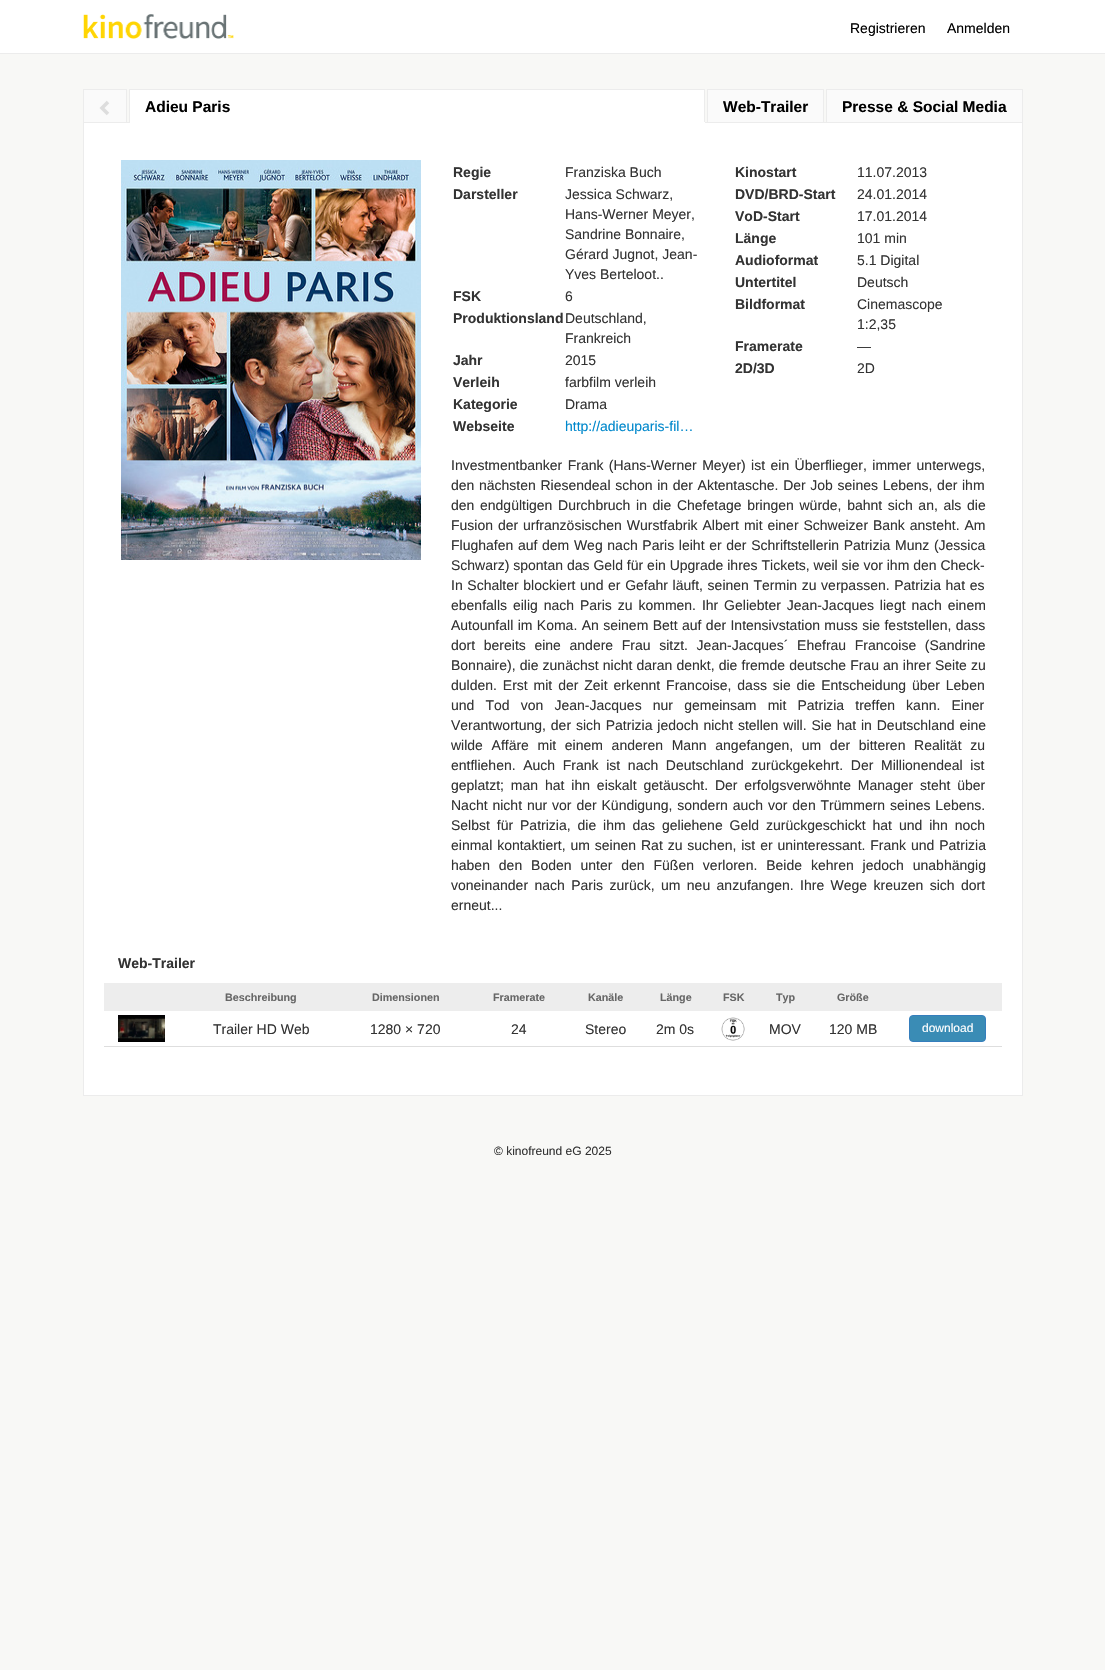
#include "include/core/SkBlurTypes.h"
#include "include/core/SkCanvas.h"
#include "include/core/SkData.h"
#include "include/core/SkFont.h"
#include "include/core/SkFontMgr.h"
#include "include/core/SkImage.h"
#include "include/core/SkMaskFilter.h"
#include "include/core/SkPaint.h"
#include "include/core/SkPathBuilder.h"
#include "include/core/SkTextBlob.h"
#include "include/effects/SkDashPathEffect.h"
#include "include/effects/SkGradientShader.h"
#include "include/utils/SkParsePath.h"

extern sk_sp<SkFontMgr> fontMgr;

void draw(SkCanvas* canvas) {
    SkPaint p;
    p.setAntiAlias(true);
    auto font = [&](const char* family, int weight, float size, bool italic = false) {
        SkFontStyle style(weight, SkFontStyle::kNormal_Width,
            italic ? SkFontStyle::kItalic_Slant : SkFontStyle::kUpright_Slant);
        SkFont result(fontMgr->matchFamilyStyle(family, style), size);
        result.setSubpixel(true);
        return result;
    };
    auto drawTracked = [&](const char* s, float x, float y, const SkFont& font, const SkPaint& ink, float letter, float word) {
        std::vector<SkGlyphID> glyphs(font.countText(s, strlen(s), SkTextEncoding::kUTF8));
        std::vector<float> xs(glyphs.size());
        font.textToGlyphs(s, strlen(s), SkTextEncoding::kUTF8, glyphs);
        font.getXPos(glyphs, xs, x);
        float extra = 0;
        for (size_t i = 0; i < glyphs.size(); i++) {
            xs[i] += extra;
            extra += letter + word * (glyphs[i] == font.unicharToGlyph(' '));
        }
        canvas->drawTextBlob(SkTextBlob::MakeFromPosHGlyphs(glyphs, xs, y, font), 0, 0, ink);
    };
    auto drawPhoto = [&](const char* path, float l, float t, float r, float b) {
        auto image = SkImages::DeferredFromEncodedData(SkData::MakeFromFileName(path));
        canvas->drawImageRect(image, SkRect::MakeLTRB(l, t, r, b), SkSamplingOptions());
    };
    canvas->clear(0xFFF8F8F6);
    p.setColor(0xFFFFFFFF);
    canvas->drawRect(SkRect::MakeLTRB(0, 0, 1105, 53), p);
    p.setColor(0xFFECECEC);
    canvas->drawRect(SkRect::MakeLTRB(0, 53, 1105, 54), p);
    drawPhoto("media/1.png", 83, 14, 234, 39);
    auto font1 = font("Liberation Sans", 400, 14);
    p.setColor(0xFF000000);
    canvas->drawString("Registrieren", 850, 33, font1, p);
    canvas->drawString("Anmelden", 947, 33, font1, p);
    p.setColor(0xFFECECEC);
    canvas->drawRect(SkRect::MakeLTRB(127, 122, 826, 123), p);
    p.setColor(0xFFFAFAFA);
    canvas->drawRect(SkRect::MakeLTRB(83.5f, 89.5f, 126.5f, 122.5f), p);
    p.setStyle(SkPaint::kStroke_Style);
    p.setStrokeWidth(1);
    p.setColor(0xFFECECEC);
    canvas->drawRect(SkRect::MakeLTRB(83.5f, 89.5f, 126.5f, 122.5f), p);
    p.setStrokeWidth(3.5f);
    p.setColor(0xFFDDDDDD);
    canvas->drawPath(SkPathBuilder().moveTo(108, 102).lineTo(102, 108).lineTo(108, 114).detach(), p);
    p.setStyle(SkPaint::kFill_Style);
    {
        const struct { float l, t, r, b; SkColor color; } items[] = {
            {130, 90, 704, 122, 0xFFFFFFFF},
            {129, 89, 705, 90, 0xFFECECEC},
            {704, 89, 705, 123, 0xFFECECEC},
            {129, 122, 705, 123, 0xFFFFFFFF},
            {129, 89, 130, 123, 0xFFECECEC},
        };
        for (auto [l, t, r, b, color] : items) {
            p.setColor(color);
            canvas->drawRect(SkRect::MakeLTRB(l, t, r, b), p);
        }
    }
    auto font2 = font("Liberation Sans", 700, 15.5f);
    p.setColor(0xFF000000);
    canvas->drawString("Adieu Paris", 145, 112, font2, p);
    p.setColor(0xFFFAFAFA);
    canvas->drawRect(SkRect::MakeLTRB(707.5f, 89.5f, 823.5f, 122.5f), p);
    p.setStyle(SkPaint::kStroke_Style);
    p.setStrokeWidth(1);
    p.setColor(0xFFECECEC);
    canvas->drawRect(SkRect::MakeLTRB(707.5f, 89.5f, 823.5f, 122.5f), p);
    p.setStyle(SkPaint::kFill_Style);
    p.setColor(0xFF000000);
    canvas->drawString("Web-Trailer", 723, 112, font2, p);
    p.setColor(0xFFFAFAFA);
    canvas->drawRect(SkRect::MakeLTRB(826.5f, 89.5f, 1022.5f, 122.5f), p);
    p.setStyle(SkPaint::kStroke_Style);
    p.setColor(0xFFECECEC);
    canvas->drawRect(SkRect::MakeLTRB(826.5f, 89.5f, 1022.5f, 122.5f), p);
    p.setStyle(SkPaint::kFill_Style);
    p.setColor(0xFF000000);
    canvas->drawString("Presse & Social Media", 842, 112, font2, p);
    {
        const struct { float l, t, r, b; SkColor color; } items[] = {
            {84, 123, 1022, 1095, 0xFFFFFFFF},
            {1022, 123, 1023, 1096, 0xFFECECEC},
            {83, 1095, 1023, 1096, 0xFFECECEC},
            {83, 123, 84, 1096, 0xFFECECEC},
        };
        for (auto [l, t, r, b, color] : items) {
            p.setColor(color);
            canvas->drawRect(SkRect::MakeLTRB(l, t, r, b), p);
        }
    }
    drawPhoto("media/2.png", 121, 160, 421, 560);
    auto font3 = font("Liberation Sans", 700, 14);
    p.setColor(0xFF333333);
    canvas->drawString("Regie", 453, 177, font3, p);
    canvas->drawString("Franziska Buch", 565, 177, font1, p);
    canvas->drawString("Darsteller", 453, 199, font3, p);
    {
        const struct { const char* s; float x, y; } items[] = {
            {"Jessica Schwarz,", 565, 199},
            {"Hans-Werner Meyer,", 565, 219},
            {"Sandrine Bonnaire,", 565, 239},
            {"Gérard Jugnot, Jean-", 565, 259},
            {"Yves Berteloot..", 565, 279},
        };
        for (auto [s, x, y] : items) {
            canvas->drawString(s, x, y, font1, p);
        }
    }
    canvas->drawString("FSK", 453, 301, font3, p);
    canvas->drawString("6", 565, 301, font1, p);
    canvas->drawString("Produktionsland", 453, 323, font3, p);
    canvas->drawString("Deutschland,", 565, 323, font1, p);
    canvas->drawString("Frankreich", 565, 343, font1, p);
    canvas->drawString("Jahr", 453, 365, font3, p);
    canvas->drawString("2015", 565, 365, font1, p);
    canvas->drawString("Verleih", 453, 387, font3, p);
    canvas->drawString("farbfilm verleih", 565, 387, font1, p);
    canvas->drawString("Kategorie", 453, 409, font3, p);
    canvas->drawString("Drama", 565, 409, font1, p);
    canvas->drawString("Webseite", 453, 431, font3, p);
    p.setColor(0xFF0088CC);
    canvas->drawString("http://adieuparis-fil…", 565, 431, font1, p);
    p.setColor(0xFF333333);
    canvas->drawString("Kinostart", 735, 177, font3, p);
    canvas->drawString("11.07.2013", 857, 177, font1, p);
    canvas->drawString("DVD/BRD-Start", 735, 199, font3, p);
    canvas->drawString("24.01.2014", 857, 199, font1, p);
    canvas->drawString("VoD-Start", 735, 221, font3, p);
    canvas->drawString("17.01.2014", 857, 221, font1, p);
    canvas->drawString("Länge", 735, 243, font3, p);
    canvas->drawString("101 min", 857, 243, font1, p);
    canvas->drawString("Audioformat", 735, 265, font3, p);
    canvas->drawString("5.1 Digital", 857, 265, font1, p);
    canvas->drawString("Untertitel", 735, 287, font3, p);
    canvas->drawString("Deutsch", 857, 287, font1, p);
    canvas->drawString("Bildformat", 735, 309, font3, p);
    canvas->drawString("Cinemascope", 857, 309, font1, p);
    canvas->drawString("1:2,35", 857, 329, font1, p);
    canvas->drawString("Framerate", 735, 351, font3, p);
    canvas->drawString("—", 857, 351, font1, p);
    canvas->drawString("2D/3D", 735, 373, font3, p);
    canvas->drawString("2D", 857, 373, font1, p);
    drawTracked("Investmentbanker Frank (Hans-Werner Meyer) ist ein Überflieger, immer unterwegs,", 451, 470, font1, p, 0, 1.5f);
    drawTracked("den nächsten Riesendeal schon in der Aktentasche. Der Job seines Lebens, der ihm", 451, 490, font1, p, 0, 0.75f);
    drawTracked("den endgültigen Durchbruch in die Chefetage bringen würde, bahnt sich an, als die", 451, 510, font1, p, 0, 1.75f);
    drawTracked("Fusion der urfranzösischen Wurstfabrik Albert mit einer Schweizer Bank ansteht. Am", 451, 530, font1, p, 0, 1);
    drawTracked("Flughafen auf dem Weg nach Paris leiht er der Schriftstellerin Patrizia Munz (Jessica", 451, 550, font1, p, 0, 0.75f);
    canvas->drawString("Schwarz) spontan das Geld für ein Upgrade ihres Tickets, weil sie vor ihm den Check-", 451, 570, font1, p);
    drawTracked("In Schalter blockiert und er Gefahr läuft, seinen Termin zu verpassen. Patrizia hat es", 451, 590, font1, p, 0, 0.75f);
    drawTracked("ebenfalls eilig nach Paris zu kommen. Ihr Geliebter Jean-Jacques liegt nach einem", 451, 610, font1, p, 0, 2);
    drawTracked("Autounfall im Koma. An seinem Bett auf der Intensivstation muss sie feststellen, dass", 451, 630, font1, p, 0, 0.5f);
    drawTracked("dort bereits eine andere Frau sitzt. Jean-Jacques´ Ehefrau Francoise (Sandrine", 451, 650, font1, p, 0, 4.75f);
    drawTracked("Bonnaire), die zunächst nicht daran denkt, die fremde deutsche Frau an ihrer Seite zu", 451, 670, font1, p, 0, 0.25f);
    drawTracked("dulden. Erst mit der Zeit erkennt Francoise, dass sie die Entscheidung über Leben", 451, 690, font1, p, 0, 2);
    drawTracked("und Tod von Jean-Jacques nur gemeinsam mit Patrizia treffen kann. Einer", 451, 710, font1, p, 0, 7.25f);
    drawTracked("Verantwortung, der sich Patrizia jedoch nicht stellen will. Sie hat in Deutschland eine", 451, 730, font1, p, 0, 1);
    drawTracked("wilde Affäre mit einem anderen Mann angefangen, um der bitteren Realität zu", 451, 750, font1, p, 0, 4.75f);
    drawTracked("entfliehen. Auch Frank ist nach Deutschland zurückgekehrt. Der Millionendeal ist", 451, 770, font1, p, 0, 3.75f);
    drawTracked("geplatzt; man hat ihn eiskalt getäuscht. Der erfolgsverwöhnte Manager steht über", 451, 790, font1, p, 0, 3);
    drawTracked("Nacht nicht nur vor der Kündigung, sondern auch vor den Trümmern seines Lebens.", 451, 810, font1, p, 0, 1);
    drawTracked("Selbst für Patrizia, die ihm das geliehene Geld zurückgeschickt hat und ihn noch", 451, 830, font1, p, 0, 3);
    drawTracked("einmal kontaktiert, um seinen Rat zu suchen, ist er uninteressant. Frank und Patrizia", 451, 850, font1, p, 0, 1);
    drawTracked("haben den Boden unter den Füßen verloren. Beide kehren jedoch unabhängig", 451, 870, font1, p, 0, 5);
    drawTracked("voneinander nach Paris zurück, um neu anzufangen. Ihre Wege kreuzen sich dort", 451, 890, font1, p, 0, 2.5f);
    canvas->drawString("erneut...", 451, 910, font1, p);
    canvas->drawString("Web-Trailer", 118, 968, font3, p);
    p.setColor(0xFFEDEDED);
    canvas->drawRect(SkRect::MakeLTRB(104, 983, 1002, 1011), p);
    auto font4 = font("Liberation Sans", 700, 10.75f);
    p.setColor(0xFF666666);
    {
        const struct { const char* s; float x, y; } items[] = {
            {"Beschreibung", 225, 1001},
            {"Dimensionen", 372, 1001},
            {"Framerate", 493, 1001},
            {"Kanäle", 588, 1001},
            {"Länge", 660, 1001},
            {"FSK", 723, 1001},
            {"Typ", 776, 1001},
            {"Größe", 837, 1001},
        };
        for (auto [s, x, y] : items) {
            canvas->drawString(s, x, y, font4, p);
        }
    }
    p.setColor(0xFFDEDEDE);
    canvas->drawRect(SkRect::MakeLTRB(104, 1046, 1002, 1047), p);
    drawPhoto("media/3.png", 118, 1015, 165, 1042);
    p.setColor(0xFF333333);
    {
        const struct { const char* s; float x, y; } items[] = {
            {"Trailer HD Web", 213, 1034},
            {"1280 × 720", 370, 1034},
            {"24", 511, 1034},
            {"Stereo", 585, 1034},
            {"2m 0s", 656, 1034},
        };
        for (auto [s, x, y] : items) {
            canvas->drawString(s, x, y, font1, p);
        }
    }
    drawPhoto("media/4.png", 721, 1017, 745, 1041);
    canvas->drawString("MOV", 769, 1034, font1, p);
    canvas->drawString("120 MB", 829, 1034, font1, p);
    p.setColor(0xFF3A8CB5);
    canvas->drawRoundRect(SkRect::MakeLTRB(909.5f, 1015.5f, 985.5f, 1041.5f), 3.5f, 3.5f, p);
    p.setStyle(SkPaint::kStroke_Style);
    p.setColor(0xFF357EBD);
    canvas->drawRoundRect(SkRect::MakeLTRB(909.5f, 1015.5f, 985.5f, 1041.5f), 3.5f, 3.5f, p);
    auto font5 = font("Liberation Sans", 400, 12);
    p.setStyle(SkPaint::kFill_Style);
    p.setColor(0xFFFFFFFF);
    canvas->drawString("download", 922, 1032, font5, p);
    p.setColor(0xFF333333);
    canvas->drawString("© kinofreund eG 2025", 494, 1155, font5, p);
}
